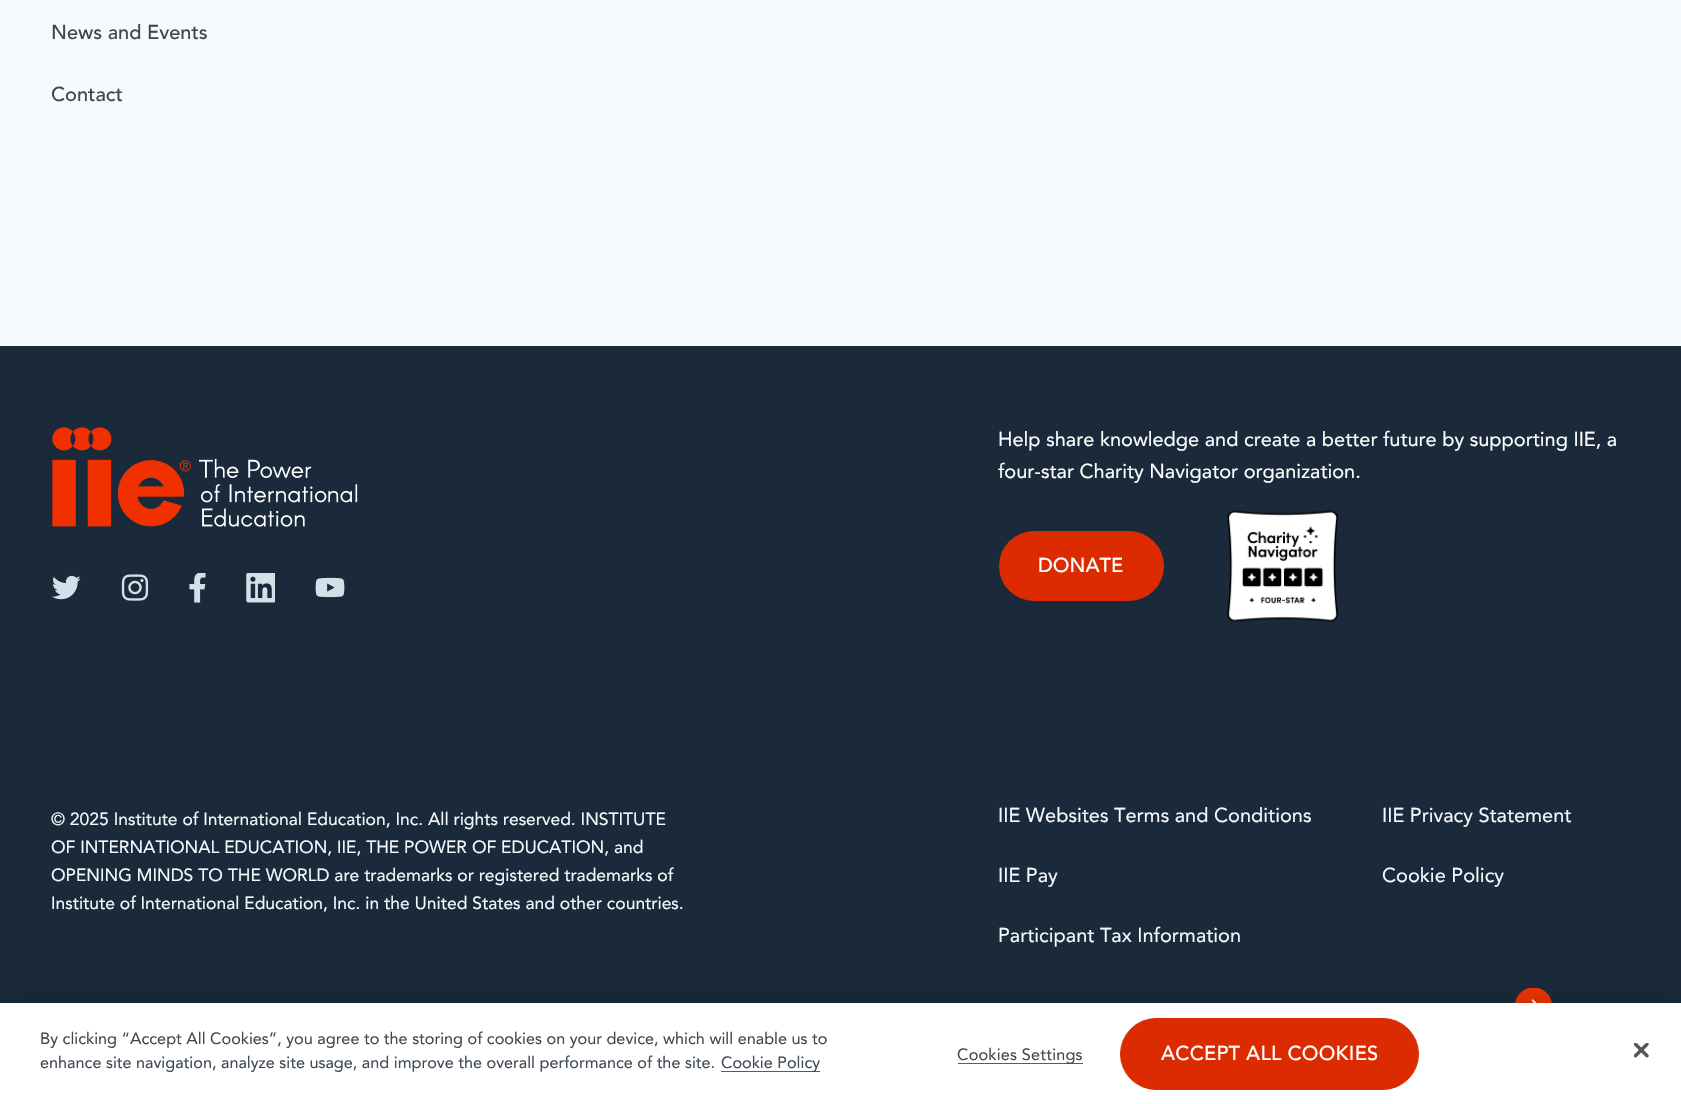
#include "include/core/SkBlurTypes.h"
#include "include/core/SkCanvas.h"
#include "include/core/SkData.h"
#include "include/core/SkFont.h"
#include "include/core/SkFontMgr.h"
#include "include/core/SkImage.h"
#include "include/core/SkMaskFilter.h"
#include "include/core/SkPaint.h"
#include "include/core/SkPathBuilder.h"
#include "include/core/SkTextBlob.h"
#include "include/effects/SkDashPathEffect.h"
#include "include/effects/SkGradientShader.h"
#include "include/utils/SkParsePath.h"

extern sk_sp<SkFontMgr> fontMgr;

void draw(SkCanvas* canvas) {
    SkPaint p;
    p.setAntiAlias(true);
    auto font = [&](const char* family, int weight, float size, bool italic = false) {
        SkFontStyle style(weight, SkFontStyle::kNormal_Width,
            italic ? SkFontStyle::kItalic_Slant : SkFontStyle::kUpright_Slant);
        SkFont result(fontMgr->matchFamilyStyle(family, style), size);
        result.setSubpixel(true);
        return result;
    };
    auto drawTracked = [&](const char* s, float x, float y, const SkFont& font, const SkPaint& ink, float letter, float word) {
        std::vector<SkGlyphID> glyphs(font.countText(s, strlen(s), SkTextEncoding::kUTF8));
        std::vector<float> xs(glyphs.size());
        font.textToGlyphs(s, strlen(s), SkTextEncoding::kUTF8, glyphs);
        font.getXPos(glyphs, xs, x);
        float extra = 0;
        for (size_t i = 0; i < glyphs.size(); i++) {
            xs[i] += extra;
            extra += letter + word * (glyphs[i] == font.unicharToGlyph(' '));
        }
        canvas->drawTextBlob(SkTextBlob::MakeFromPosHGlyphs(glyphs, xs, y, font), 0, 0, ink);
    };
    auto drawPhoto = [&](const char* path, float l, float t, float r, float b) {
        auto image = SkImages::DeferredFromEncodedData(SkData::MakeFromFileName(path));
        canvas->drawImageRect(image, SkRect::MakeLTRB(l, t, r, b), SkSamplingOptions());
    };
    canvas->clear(0xFFF7FAFD);
    auto font1 = font("Avenir", 500, 20);
    p.setColor(0xFF3D4955);
    canvas->drawString("News and Events", 51, 39, font1, p);
    canvas->drawString("Contact", 51, 101, font1, p);
    p.setColor(0xFF1A2A3A);
    canvas->drawRect(SkRect::MakeLTRB(0, 346, 1681, 1003), p);
    drawPhoto("media/1.png", 52, 427, 358, 527);
    drawPhoto("media/2.png", 52, 575, 81, 600);
    drawPhoto("media/3.png", 121, 574, 149, 601);
    drawPhoto("media/4.png", 189, 573, 206, 603);
    drawPhoto("media/5.png", 246, 573, 275, 603);
    drawPhoto("media/6.png", 315, 577, 345, 598);
    auto font2 = font("Avenir", 400, 20);
    p.setColor(0xFFFFFFFF);
    canvas->drawString("Help share knowledge and create a better future by supporting IIE, a", 998, 446, font2, p);
    canvas->drawString("four-star Charity Navigator organization.", 998, 478, font2, p);
    p.setColor(0xFFDC2B00);
    canvas->drawRoundRect(SkRect::MakeLTRB(999, 531, 1164, 601), 35, 35, p);
    p.setColor(0xFFFFFFFF);
    canvas->drawString("DONATE", 1038, 572, font1, p);
    drawPhoto("media/7.png", 1227, 510, 1338, 623);
    auto font3 = font("Avenir", 400, 17.5f);
    p.setColor(0xFFF7FAFD);
    {
        const struct { const char* s; float x, y; } items[] = {
            {"© 2025 Institute of International Education, Inc. All rights reserved. INSTITUTE", 51, 825},
            {"OF INTERNATIONAL EDUCATION, IIE, THE POWER OF EDUCATION, and", 51, 853},
            {"OPENING MINDS TO THE WORLD are trademarks or registered trademarks of", 51, 881},
            {"Institute of International Education, Inc. in the United States and other countries.", 51, 909},
        };
        for (auto [s, x, y] : items) {
            canvas->drawString(s, x, y, font3, p);
        }
    }
    {
        const struct { const char* s; float x, y; } items[] = {
            {"IIE Websites Terms and Conditions", 998, 822},
            {"IIE Pay", 998, 882},
            {"Participant Tax Information", 998, 942},
            {"IIE Privacy Statement", 1382, 822},
            {"Cookie Policy", 1382, 882},
        };
        for (auto [s, x, y] : items) {
            canvas->drawString(s, x, y, font2, p);
        }
    }
    drawPhoto("media/8.png", 1515, 988, 1552, 1003);
    p.setColor(0x33000000);
    p.setMaskFilter(SkMaskFilter::MakeBlur(kNormal_SkBlurStyle, 11));
    canvas->drawRect(SkRect::MakeLTRB(0, 1003, 1681, 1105), p);
    p.setMaskFilter(nullptr);
    p.setColor(0xFFFFFFFF);
    canvas->drawRect(SkRect::MakeLTRB(0, 1003, 1681, 1104), p);
    auto font4 = font("Avenir", 400, 16.25f);
    p.setColor(0xFF3D4955);
    canvas->drawString("By clicking “Accept All Cookies”, you agree to the storing of cookies on your device, which will enable us to", 40, 1044, font4, p);
    canvas->drawString("enhance site navigation, analyze site usage, and improve the overall performance of the site.", 40, 1068, font4, p);
    p.setColor(0xFFDC2B00);
    canvas->drawRect(SkRect::MakeLTRB(721, 1071, 820, 1072), p);
    p.setColor(0xFF3D4955);
    canvas->drawString("Cookie Policy", 721, 1068, font4, p);
    p.setColor(0xFFDC2B00);
    canvas->drawRect(SkRect::MakeLTRB(958, 1063, 1083, 1064), p);
    p.setColor(0xFF3D4955);
    drawTracked("Cookies Settings", 957, 1060, font4, p, 0.2f, 0);
    p.setColor(0xFFDC2B00);
    canvas->drawRoundRect(SkRect::MakeLTRB(1120.5f, 1018.5f, 1418.5f, 1089.5f), 35.5f, 35.5f, p);
    p.setStyle(SkPaint::kStroke_Style);
    p.setStrokeWidth(1);
    canvas->drawRoundRect(SkRect::MakeLTRB(1120.5f, 1018.5f, 1418.5f, 1089.5f), 35.5f, 35.5f, p);
    p.setStyle(SkPaint::kFill_Style);
    p.setColor(0xFFFFFFFF);
    drawTracked("ACCEPT ALL COOKIES", 1161, 1060, font1, p, 0.25f, 0);
    drawPhoto("media/9.png", 1634, 1043, 1649, 1058);
}
